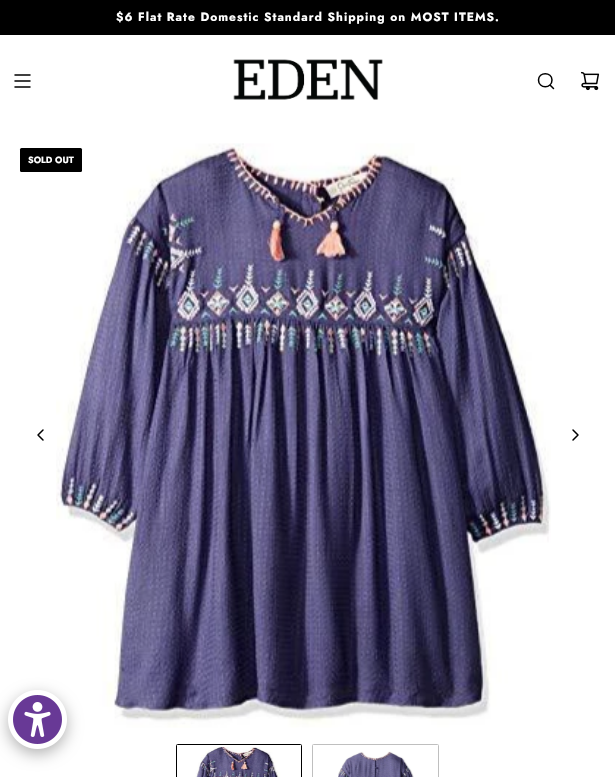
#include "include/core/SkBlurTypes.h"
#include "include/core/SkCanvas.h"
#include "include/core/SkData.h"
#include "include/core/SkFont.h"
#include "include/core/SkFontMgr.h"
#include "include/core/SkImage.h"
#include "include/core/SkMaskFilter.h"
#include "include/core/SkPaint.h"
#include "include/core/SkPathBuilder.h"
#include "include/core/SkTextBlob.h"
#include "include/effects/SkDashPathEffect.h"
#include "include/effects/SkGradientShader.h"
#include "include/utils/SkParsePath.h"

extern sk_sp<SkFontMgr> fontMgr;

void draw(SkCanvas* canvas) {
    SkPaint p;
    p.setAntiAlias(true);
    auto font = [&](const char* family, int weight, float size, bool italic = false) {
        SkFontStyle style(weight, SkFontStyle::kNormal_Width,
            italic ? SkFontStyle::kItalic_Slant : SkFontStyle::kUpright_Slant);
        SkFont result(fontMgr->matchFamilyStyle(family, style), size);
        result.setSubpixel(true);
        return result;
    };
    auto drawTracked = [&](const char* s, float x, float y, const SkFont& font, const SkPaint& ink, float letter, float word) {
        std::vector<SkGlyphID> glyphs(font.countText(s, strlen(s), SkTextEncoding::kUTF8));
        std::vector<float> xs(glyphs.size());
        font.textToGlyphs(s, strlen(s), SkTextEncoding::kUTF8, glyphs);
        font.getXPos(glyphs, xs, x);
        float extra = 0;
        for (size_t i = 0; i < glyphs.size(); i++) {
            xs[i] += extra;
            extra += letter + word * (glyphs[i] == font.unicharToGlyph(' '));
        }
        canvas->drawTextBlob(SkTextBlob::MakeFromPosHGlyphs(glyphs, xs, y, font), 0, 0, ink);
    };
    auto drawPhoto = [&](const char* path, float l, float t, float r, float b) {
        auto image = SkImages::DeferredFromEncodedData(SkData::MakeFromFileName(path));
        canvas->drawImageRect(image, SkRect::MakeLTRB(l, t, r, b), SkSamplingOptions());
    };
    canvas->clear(0xFFFFFFFF);
    p.setColor(0xFF000000);
    canvas->drawRect(SkRect::MakeLTRB(0, 0, 615, 35), p);
    auto font1 = font("Jost", 700, 12);
    p.setColor(0xFFFFFFFF);
    drawTracked("$6 Flat Rate Domestic Standard Shipping on MOST ITEMS.", 116, 21, font1, p, 1, 0);
    p.setStyle(SkPaint::kStroke_Style);
    p.setStrokeWidth(1.5f);
    p.setStrokeCap(SkPaint::kRound_Cap);
    p.setStrokeJoin(SkPaint::kRound_Join);
    p.setColor(0xFF000000);
    canvas->drawPath(SkPathBuilder().moveTo(15, 75).lineTo(30, 75).moveTo(15, 81).lineTo(30, 81).moveTo(15, 87).lineTo(30, 87).detach(), p);
    drawPhoto("media/1.png", 233, 59, 383, 100);
    canvas->drawPath(SkPathBuilder().moveTo(550, 85).lineTo(553.5f, 88.5f).moveTo(538.5f, 80).cubicTo(538.5f, 89, 552, 89, 552, 80).cubicTo(552, 71.5f, 538.5f, 71.5f, 538.5f, 80).close().detach(), p);
    drawPhoto("media/2.png", 580, 71, 600, 91);
    drawPhoto("media/3.png", 56, 143, 551, 728);
    p.setStyle(SkPaint::kFill_Style);
    canvas->drawRoundRect(SkRect::MakeLTRB(20, 148, 82, 172), 1.5f, 1.5f, p);
    auto font2 = font("Jost", 700, 9);
    p.setColor(0xFFFFFFFF);
    canvas->drawString("SOLD OUT", 28, 163, font2, p);
    canvas->drawRoundRect(SkRect::MakeLTRB(25, 419, 57, 451), 1.5f, 1.5f, p);
    p.setStyle(SkPaint::kStroke_Style);
    p.setColor(0xFF000000);
    canvas->drawPath(SkPathBuilder().moveTo(43, 430).lineTo(38, 435).lineTo(43, 440).detach(), p);
    canvas->drawPath(SkPathBuilder().moveTo(573, 430).lineTo(578, 435).lineTo(573, 440).detach(), p);
    p.setStrokeWidth(1);
    p.setStrokeCap(SkPaint::kButt_Cap);
    p.setStrokeJoin(SkPaint::kMiter_Join);
    canvas->drawRoundRect(SkRect::MakeLTRB(176.5f, 744.5f, 301.5f, 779.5f), 1, 1, p);
    drawPhoto("media/4.png", 179, 747, 299, 777);
    p.setStrokeWidth(2);
    p.setColor(0xFFFFFFFF);
    canvas->drawPath(SkPathBuilder().moveTo(178, 746).lineTo(300, 746).lineTo(300, 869).lineTo(178, 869).close().detach(), p);
    p.setStrokeWidth(1);
    p.setColor(0xFFBFBFBF);
    canvas->drawRoundRect(SkRect::MakeLTRB(312.5f, 744.5f, 438.5f, 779.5f), 1, 1, p);
    drawPhoto("media/5.png", 338, 751, 414, 777);
    p.setStyle(SkPaint::kFill_Style);
    p.setColor(0x4D000000);
    p.setMaskFilter(SkMaskFilter::MakeBlur(kNormal_SkBlurStyle, 7.5f));
    canvas->drawRoundRect(SkRect::MakeLTRB(8, 695, 67, 754), 29.5f, 29.5f, p);
    p.setMaskFilter(nullptr);
    drawPhoto("media/6.png", 8, 690, 67, 749);
}
